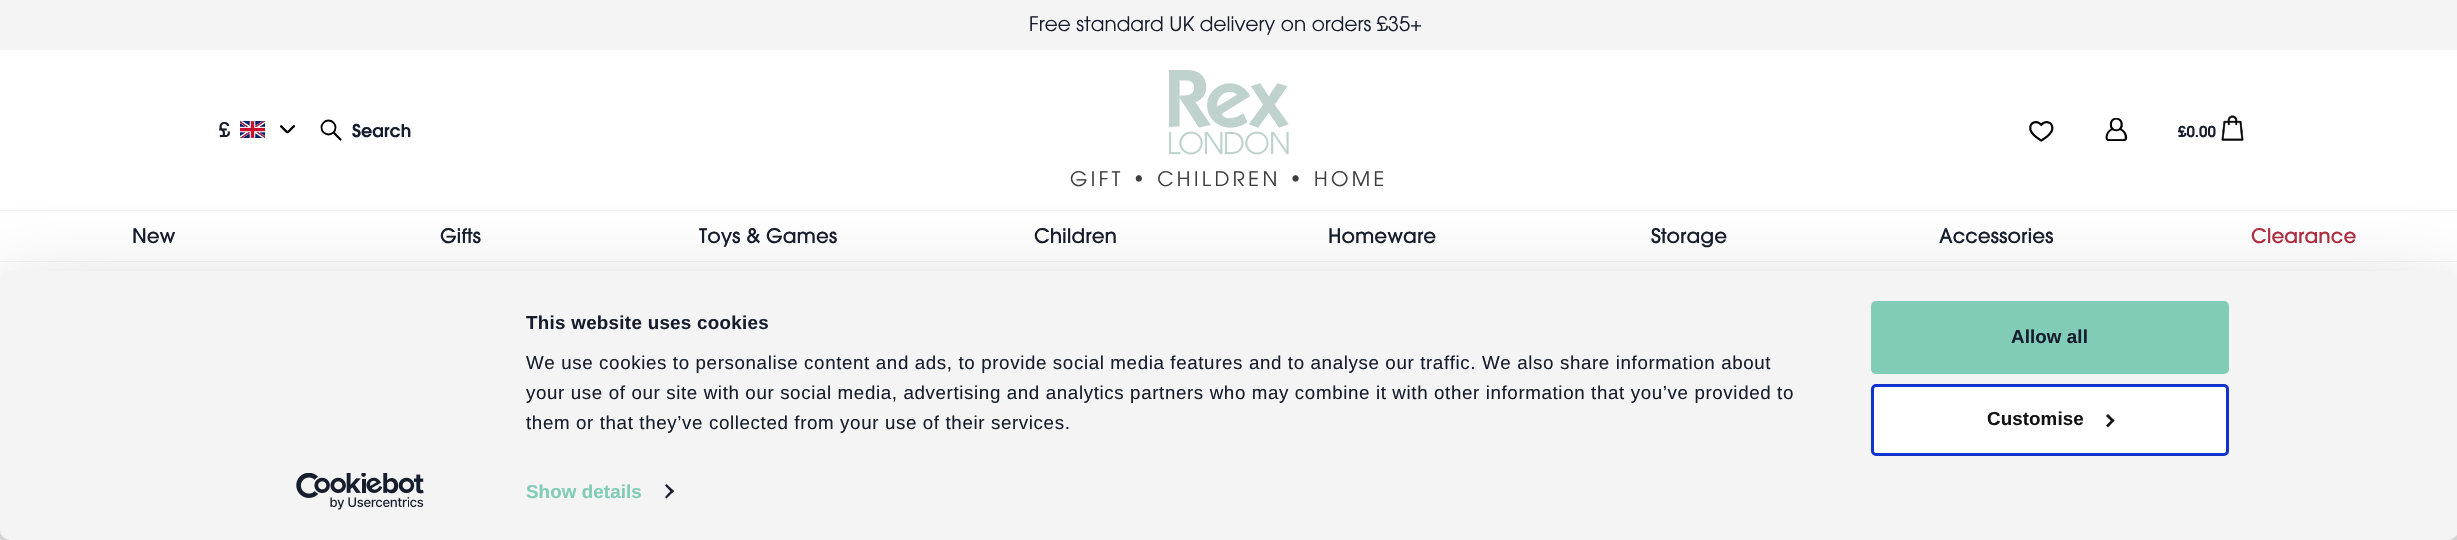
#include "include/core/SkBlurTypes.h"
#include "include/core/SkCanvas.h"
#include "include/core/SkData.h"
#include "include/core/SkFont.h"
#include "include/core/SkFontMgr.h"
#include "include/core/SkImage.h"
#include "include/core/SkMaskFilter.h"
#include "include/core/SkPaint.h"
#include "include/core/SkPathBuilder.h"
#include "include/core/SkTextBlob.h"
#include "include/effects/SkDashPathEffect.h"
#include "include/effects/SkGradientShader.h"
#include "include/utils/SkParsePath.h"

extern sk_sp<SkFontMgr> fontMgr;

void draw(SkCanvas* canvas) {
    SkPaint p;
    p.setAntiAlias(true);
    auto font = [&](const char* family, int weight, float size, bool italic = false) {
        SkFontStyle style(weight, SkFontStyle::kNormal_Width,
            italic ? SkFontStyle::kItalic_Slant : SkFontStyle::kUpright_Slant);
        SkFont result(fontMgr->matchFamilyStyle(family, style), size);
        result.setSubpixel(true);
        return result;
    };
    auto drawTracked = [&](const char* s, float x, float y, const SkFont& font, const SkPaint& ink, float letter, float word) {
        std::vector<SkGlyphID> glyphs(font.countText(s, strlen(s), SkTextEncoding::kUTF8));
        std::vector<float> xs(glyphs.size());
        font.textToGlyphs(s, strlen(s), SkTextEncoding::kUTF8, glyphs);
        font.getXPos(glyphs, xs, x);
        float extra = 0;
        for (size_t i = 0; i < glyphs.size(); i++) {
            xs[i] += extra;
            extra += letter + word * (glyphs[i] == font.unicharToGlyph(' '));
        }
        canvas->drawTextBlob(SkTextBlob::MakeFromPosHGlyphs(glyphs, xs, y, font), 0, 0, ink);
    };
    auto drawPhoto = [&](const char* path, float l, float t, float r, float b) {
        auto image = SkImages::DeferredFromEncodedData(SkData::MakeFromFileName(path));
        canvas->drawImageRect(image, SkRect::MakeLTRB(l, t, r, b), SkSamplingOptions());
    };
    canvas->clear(0xFFFFFFFF);
    p.setColor(0xFFF4F4F4);
    canvas->drawRect(SkRect::MakeLTRB(0, 0, 2457, 50), p);
    auto font1 = font("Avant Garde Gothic", 400, 20);
    p.setColor(0xFF161E2E);
    canvas->drawString("Free standard UK delivery on orders £35+", 1029, 31, font1, p);
    auto font2 = font("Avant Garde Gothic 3", 400, 20);
    canvas->drawString("£", 219, 137, font2, p);
    drawPhoto("media/1.png", 240, 121, 265, 138);
    drawPhoto("media/2.png", 280, 125, 295, 134);
    p.setStyle(SkPaint::kStroke_Style);
    p.setStrokeWidth(1.8f);
    p.setColor(0xFF000000);
    canvas->drawCircle(328.5f, 127.5f, 7, p);
    p.setStrokeWidth(2.2f);
    p.setStrokeCap(SkPaint::kRound_Cap);
    canvas->drawPath(SkPathBuilder().moveTo(340.5f, 139.5f).lineTo(334, 133).detach(), p);
    auto font3 = font("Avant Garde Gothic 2", 400, 17.5f);
    p.setStyle(SkPaint::kFill_Style);
    p.setColor(0xFF161E2E);
    canvas->drawString("Search", 352, 137, font3, p);
    drawPhoto("media/3.png", 2029, 121, 2054, 142);
    drawPhoto("media/4.png", 2105, 118, 2128, 141);
    auto font4 = font("Avant Garde Gothic 2", 400, 15);
    canvas->drawString("£0.00", 2178, 137, font4, p);
    drawPhoto("media/5.png", 2221, 115, 2244, 141);
    drawPhoto("media/6.png", 1169, 70, 1289, 155);
    p.setColor(0xFF3E3E3E);
    drawTracked("GIFT • CHILDREN • HOME", 1070, 186, font1, p, 3.4f, 0);
    p.setColor(0xFFF4F4F4);
    canvas->drawRect(SkRect::MakeLTRB(0, 210, 2457, 211), p);
    canvas->drawRect(SkRect::MakeLTRB(0, 261, 2457, 262), p);
    p.setColor(0xFF161E2E);
    {
        const struct { const char* s; float x, y; } items[] = {
            {"New", 132, 243},
            {"Gifts", 440, 243},
            {"Toys & Games", 699, 243},
            {"Children", 1034, 243},
            {"Homeware", 1328, 243},
            {"Storage", 1651, 243},
            {"Accessories", 1939, 243},
        };
        for (auto [s, x, y] : items) {
            canvas->drawString(s, x, y, font2, p);
        }
    }
    p.setColor(0xFFB02D3F);
    canvas->drawString("Clearance", 2251, 243, font2, p);
    p.setColor(0xFFF4F4F4);
    canvas->drawRect(SkRect::MakeLTRB(0, 530, 2457, 540), p);
    p.setColor(0x4D000000);
    p.setMaskFilter(SkMaskFilter::MakeBlur(kNormal_SkBlurStyle, 44));
    canvas->drawRoundRect(SkRect::MakeLTRB(0, 309, 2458, 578), 10, 10, p);
    p.setMaskFilter(nullptr);
    p.setColor(0xFFF4F4F4);
    canvas->drawRoundRect(SkRect::MakeLTRB(0, 271, 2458, 540), 10, 10, p);
    auto font5 = font("Liberation Sans", 700, 18.75f);
    p.setColor(0xFF161E2E);
    drawTracked("This website uses cookies", 526, 329, font5, p, 0.3f, 0);
    auto font6 = font("Liberation Sans", 400, 18.75f);
    {
        const struct { const char* s; float x, y; } items[] = {
            {"We use cookies to personalise content and ads, to provide social media features and to analyse our traffic. We also share information about", 526, 369},
            {"your use of our site with our social media, advertising and analytics partners who may combine it with other information that you’ve provided to", 526, 399},
            {"them or that they’ve collected from your use of their services.", 526, 429},
        };
        for (auto [s, x, y] : items) {
            drawTracked(s, x, y, font6, p, 0.62f, 0);
        }
    }
    p.setColor(0xFF81CCB7);
    drawTracked("Show details", 526, 498, font5, p, 0.1f, 0);
    p.setColor(0xFF161E2E);
    canvas->drawPath(SkPathBuilder().moveTo(666.5f, 484).lineTo(674, 491).lineTo(672, 493).lineTo(665, 485.5f).close().detach(), p);
    canvas->drawPath(SkPathBuilder().moveTo(672, 489.5f).lineTo(674, 491).lineTo(666.5f, 498.5f).lineTo(665, 497).close().detach(), p);
    p.setColor(0xFF81CCB7);
    canvas->drawRoundRect(SkRect::MakeLTRB(1872.5f, 302.5f, 2227.5f, 372.5f), 3.5f, 3.5f, p);
    p.setStyle(SkPaint::kStroke_Style);
    p.setStrokeWidth(3);
    p.setStrokeCap(SkPaint::kButt_Cap);
    canvas->drawRoundRect(SkRect::MakeLTRB(1872.5f, 302.5f, 2227.5f, 372.5f), 3.5f, 3.5f, p);
    p.setStyle(SkPaint::kFill_Style);
    p.setColor(0xFF161E2E);
    drawTracked("Allow all", 2011, 343, font5, p, 0.1f, 0);
    p.setColor(0xFFFFFFFF);
    canvas->drawRoundRect(SkRect::MakeLTRB(1872.5f, 385.5f, 2227.5f, 454.5f), 3.5f, 3.5f, p);
    p.setStyle(SkPaint::kStroke_Style);
    p.setColor(0xFF1032CF);
    canvas->drawRoundRect(SkRect::MakeLTRB(1872.5f, 385.5f, 2227.5f, 454.5f), 3.5f, 3.5f, p);
    p.setStyle(SkPaint::kFill_Style);
    p.setColor(0xFF141414);
    drawTracked("Customise", 1987, 425, font5, p, 0.1f, 0);
    canvas->drawPath(SkPathBuilder().moveTo(2108, 414).lineTo(2114.5f, 420.5f).lineTo(2112.5f, 422.5f).lineTo(2106, 416).close().detach(), p);
    canvas->drawPath(SkPathBuilder().moveTo(2112.5f, 419).lineTo(2114.5f, 420.5f).lineTo(2108, 427.5f).lineTo(2106, 425.5f).close().detach(), p);
    drawPhoto("media/7.png", 296, 473, 424, 510);
}
